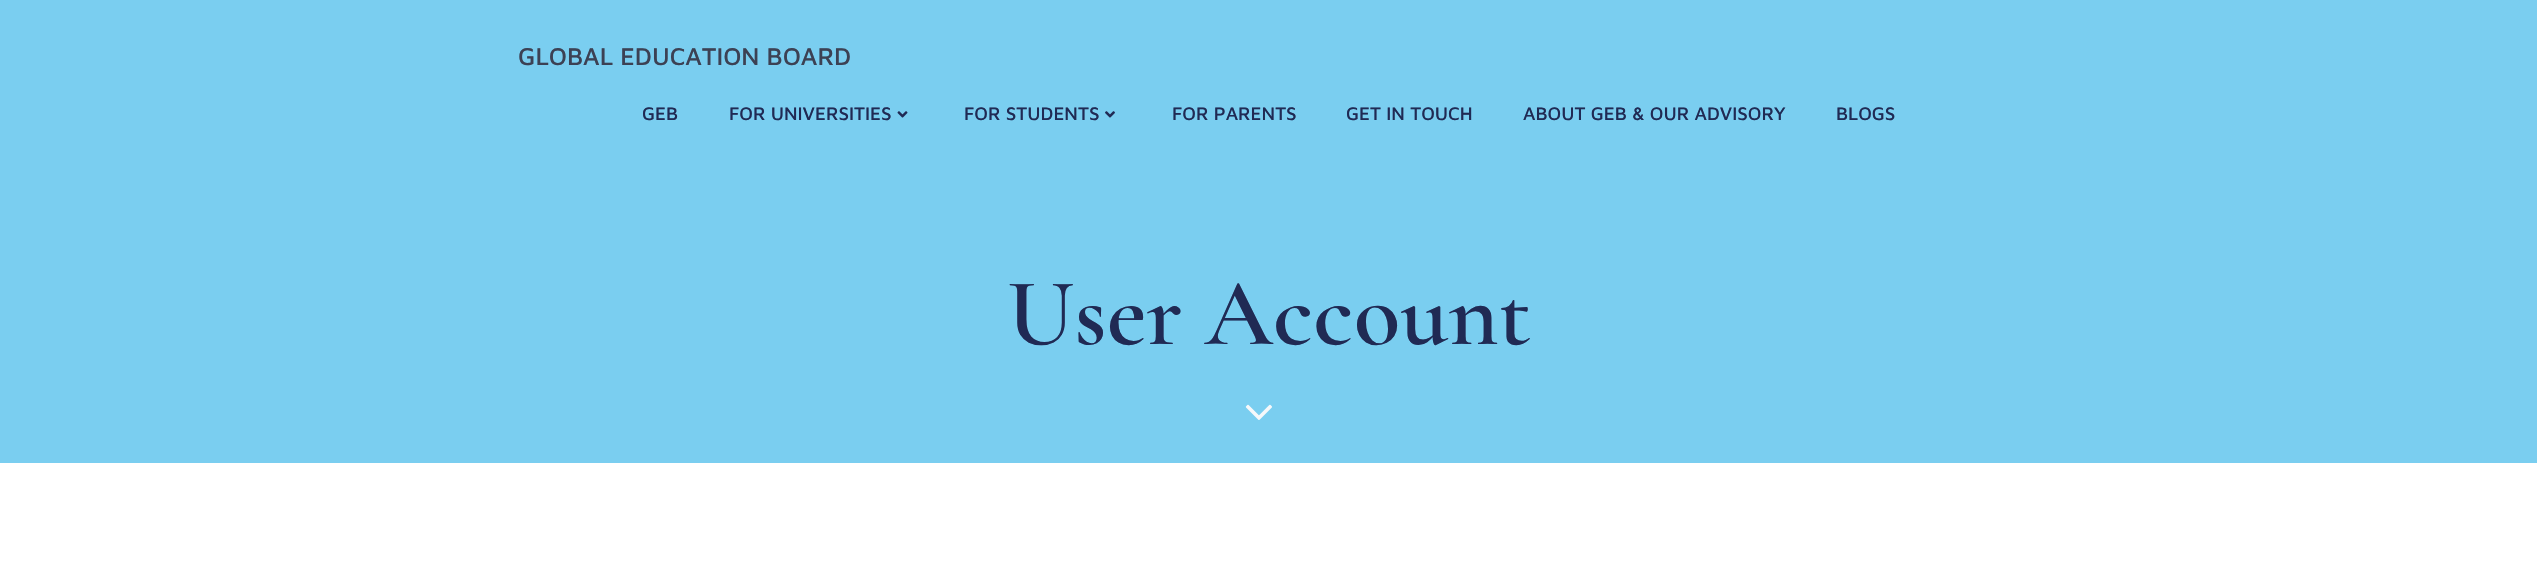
#include "include/core/SkBlurTypes.h"
#include "include/core/SkCanvas.h"
#include "include/core/SkData.h"
#include "include/core/SkFont.h"
#include "include/core/SkFontMgr.h"
#include "include/core/SkImage.h"
#include "include/core/SkMaskFilter.h"
#include "include/core/SkPaint.h"
#include "include/core/SkPathBuilder.h"
#include "include/core/SkTextBlob.h"
#include "include/effects/SkDashPathEffect.h"
#include "include/effects/SkGradientShader.h"
#include "include/utils/SkParsePath.h"

extern sk_sp<SkFontMgr> fontMgr;

void draw(SkCanvas* canvas) {
    SkPaint p;
    p.setAntiAlias(true);
    auto font = [&](const char* family, int weight, float size, bool italic = false) {
        SkFontStyle style(weight, SkFontStyle::kNormal_Width,
            italic ? SkFontStyle::kItalic_Slant : SkFontStyle::kUpright_Slant);
        SkFont result(fontMgr->matchFamilyStyle(family, style), size);
        result.setSubpixel(true);
        return result;
    };
    auto drawPhoto = [&](const char* path, float l, float t, float r, float b) {
        auto image = SkImages::DeferredFromEncodedData(SkData::MakeFromFileName(path));
        canvas->drawImageRect(image, SkRect::MakeLTRB(l, t, r, b), SkSamplingOptions());
    };
    canvas->clear(0xFFFFFFFF);
    p.setColor(0xFF7ACEF0);
    canvas->drawRect(SkRect::MakeLTRB(0, 0, 2537, 463), p);
    auto font1 = font("Maven Pro", 500, 25);
    p.setColor(0xFF3C4154);
    canvas->drawString("GLOBAL EDUCATION BOARD", 518, 65, font1, p);
    auto font2 = font("Maven Pro", 500, 18.75f);
    p.setColor(0xFF202A54);
    canvas->drawString("GEB", 642, 120, font2, p);
    canvas->drawString("FOR UNIVERSITIES", 729, 120, font2, p);
    drawPhoto("media/1.png", 897, 111, 908, 118);
    canvas->drawString("FOR STUDENTS", 964, 120, font2, p);
    drawPhoto("media/2.png", 1105, 111, 1115, 118);
    {
        const struct { const char* s; float x, y; } items[] = {
            {"FOR PARENTS", 1172, 120},
            {"GET IN TOUCH", 1346, 120},
            {"ABOUT GEB & OUR ADVISORY", 1523, 120},
            {"BLOGS", 1836, 120},
        };
        for (auto [s, x, y] : items) {
            canvas->drawString(s, x, y, font2, p);
        }
    }
    auto font3 = font("Cormorant Garamond", 600, 96);
    canvas->drawString("User Account", 1007, 344, font3, p);
    drawPhoto("media/3.png", 1245, 404, 1272, 420);
}
